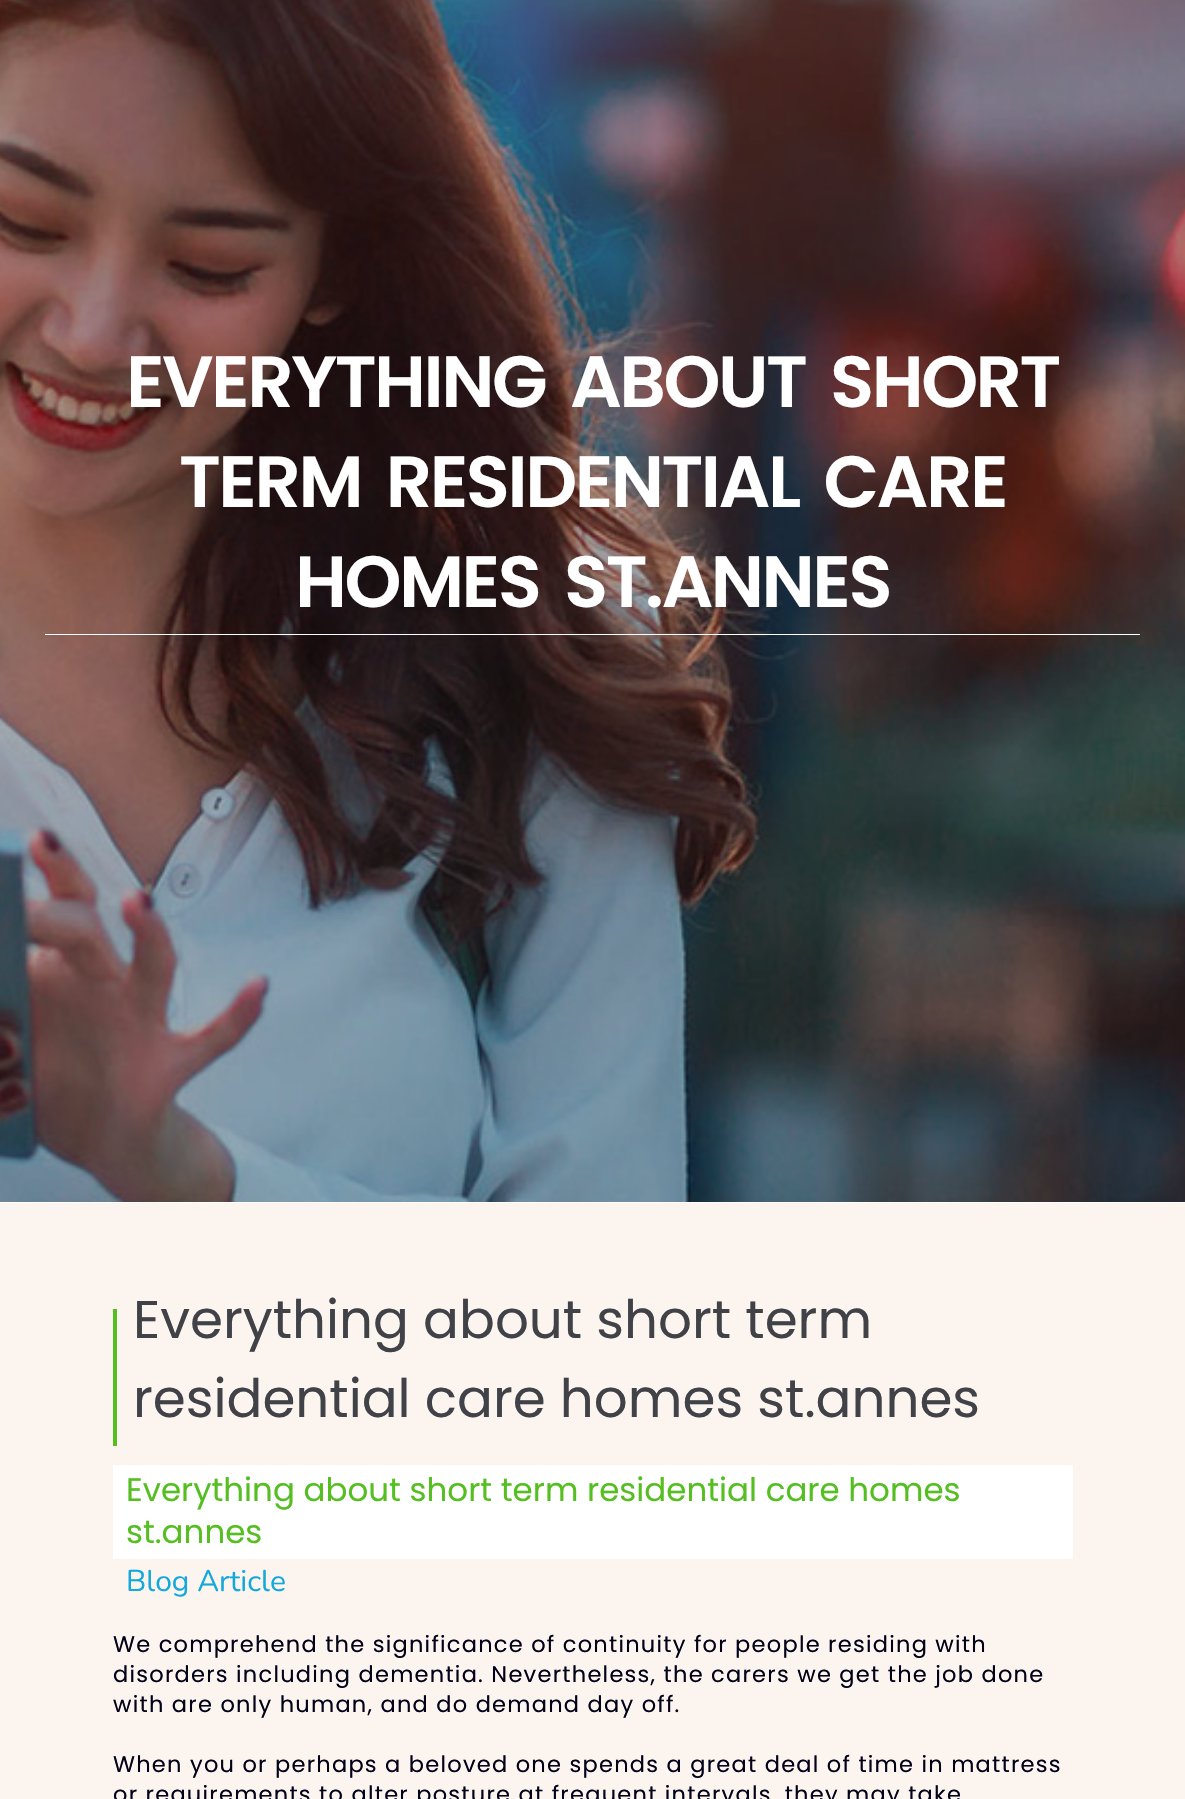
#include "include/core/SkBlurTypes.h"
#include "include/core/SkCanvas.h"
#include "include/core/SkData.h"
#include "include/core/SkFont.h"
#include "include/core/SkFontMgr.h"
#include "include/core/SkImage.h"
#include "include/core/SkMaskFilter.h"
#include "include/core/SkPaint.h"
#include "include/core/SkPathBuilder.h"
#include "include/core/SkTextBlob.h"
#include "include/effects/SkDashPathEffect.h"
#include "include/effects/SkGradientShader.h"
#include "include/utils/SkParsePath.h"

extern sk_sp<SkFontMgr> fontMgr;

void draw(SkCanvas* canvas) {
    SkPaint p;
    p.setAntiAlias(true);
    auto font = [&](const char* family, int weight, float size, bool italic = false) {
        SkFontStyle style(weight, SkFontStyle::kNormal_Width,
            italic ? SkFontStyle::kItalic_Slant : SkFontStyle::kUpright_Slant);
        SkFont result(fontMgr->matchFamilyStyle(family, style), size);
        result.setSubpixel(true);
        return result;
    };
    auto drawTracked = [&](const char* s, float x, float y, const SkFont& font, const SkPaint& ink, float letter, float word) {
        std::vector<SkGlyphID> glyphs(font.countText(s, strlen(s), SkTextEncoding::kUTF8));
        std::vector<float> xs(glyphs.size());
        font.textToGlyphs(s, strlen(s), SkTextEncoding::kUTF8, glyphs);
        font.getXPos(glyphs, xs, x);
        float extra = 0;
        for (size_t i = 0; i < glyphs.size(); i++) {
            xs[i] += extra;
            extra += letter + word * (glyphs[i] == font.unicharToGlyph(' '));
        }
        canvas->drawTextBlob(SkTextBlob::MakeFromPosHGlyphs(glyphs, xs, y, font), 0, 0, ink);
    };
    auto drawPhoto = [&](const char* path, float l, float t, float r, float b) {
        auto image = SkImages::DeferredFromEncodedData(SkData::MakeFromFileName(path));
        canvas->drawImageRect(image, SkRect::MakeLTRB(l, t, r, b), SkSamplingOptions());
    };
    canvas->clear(0xFFFFFFFF);
    drawPhoto("media/1.png", 0, 0, 1185, 1202);
    p.setColor(0xFFFFFFFF);
    canvas->drawRect(SkRect::MakeLTRB(45, 634, 1140, 635), p);
    auto font1 = font("Poppins", 600, 72.5f);
    {
        const struct { const char* s; float x, y; } items[] = {
            {"EVERYTHING ABOUT SHORT", 126, 407},
            {"TERM RESIDENTIAL CARE", 179, 507},
            {"HOMES ST.ANNES", 295, 607},
        };
        for (auto [s, x, y] : items) {
            drawTracked(s, x, y, font1, p, -2.5f, 10);
        }
    }
    p.setColor(0xFFFCF4EF);
    canvas->drawRect(SkRect::MakeLTRB(0, 1203, 1185, 1799), p);
    p.setColor(0xFF55BE21);
    canvas->drawRect(SkRect::MakeLTRB(113, 1309, 117, 1446), p);
    auto font2 = font("Poppins", 400, 53.1f);
    p.setColor(0xFF404248);
    canvas->drawString("Everything about short term", 133, 1338, font2, p);
    canvas->drawString("residential care homes st.annes", 133, 1417, font2, p);
    p.setColor(0xFFFFFFFF);
    canvas->drawRect(SkRect::MakeLTRB(113, 1465, 1073, 1559), p);
    auto font3 = font("Poppins", 400, 32.5f);
    p.setColor(0xFF55BE21);
    canvas->drawString("Everything about short term residential care homes", 126, 1501, font3, p);
    canvas->drawString("st.annes", 126, 1543, font3, p);
    auto font4 = font("Nunito", 400, 30);
    p.setColor(0xFF13A9DC);
    canvas->drawString("Blog Article", 126, 1591, font4, p);
    auto font5 = font("Poppins", 400, 22.5f);
    p.setColor(0xFF010118);
    {
        const struct { const char* s; float x, y; } items[] = {
            {"We comprehend the significance of continuity for people residing with", 113, 1652},
            {"disorders including dementia. Nevertheless, the carers we get the job done", 113, 1682},
            {"with are only human, and do demand day off.", 113, 1712},
            {"When you or perhaps a beloved one spends a great deal of time in mattress", 113, 1772},
            {"or requirements to alter posture at frequent intervals, they may take", 113, 1802},
        };
        for (auto [s, x, y] : items) {
            drawTracked(s, x, y, font5, p, 1.25f, 0);
        }
    }
}
